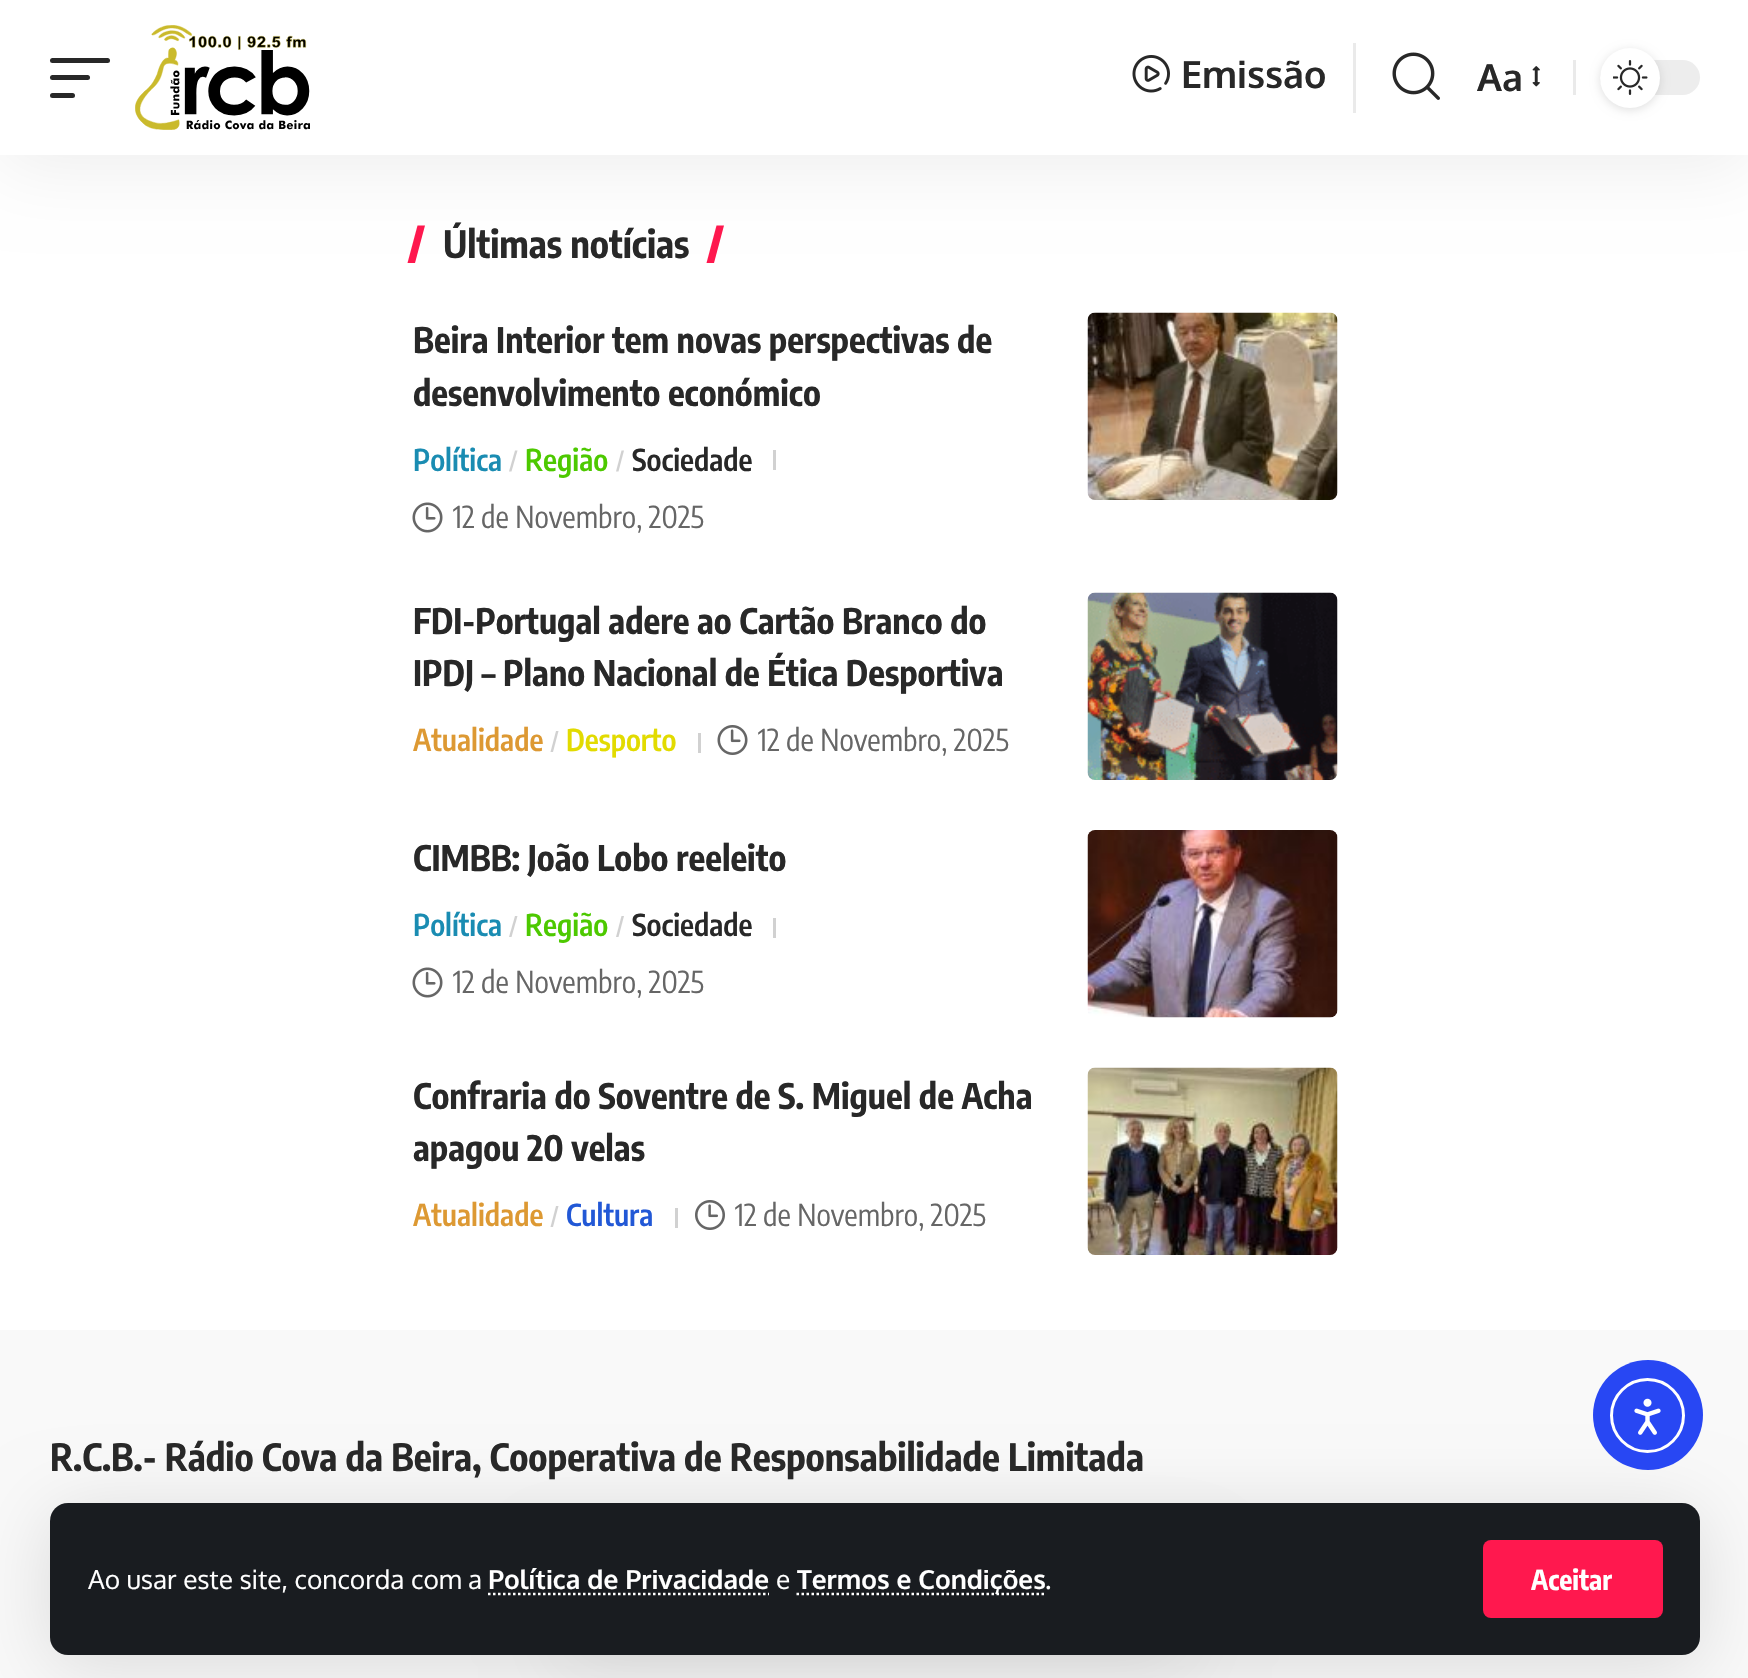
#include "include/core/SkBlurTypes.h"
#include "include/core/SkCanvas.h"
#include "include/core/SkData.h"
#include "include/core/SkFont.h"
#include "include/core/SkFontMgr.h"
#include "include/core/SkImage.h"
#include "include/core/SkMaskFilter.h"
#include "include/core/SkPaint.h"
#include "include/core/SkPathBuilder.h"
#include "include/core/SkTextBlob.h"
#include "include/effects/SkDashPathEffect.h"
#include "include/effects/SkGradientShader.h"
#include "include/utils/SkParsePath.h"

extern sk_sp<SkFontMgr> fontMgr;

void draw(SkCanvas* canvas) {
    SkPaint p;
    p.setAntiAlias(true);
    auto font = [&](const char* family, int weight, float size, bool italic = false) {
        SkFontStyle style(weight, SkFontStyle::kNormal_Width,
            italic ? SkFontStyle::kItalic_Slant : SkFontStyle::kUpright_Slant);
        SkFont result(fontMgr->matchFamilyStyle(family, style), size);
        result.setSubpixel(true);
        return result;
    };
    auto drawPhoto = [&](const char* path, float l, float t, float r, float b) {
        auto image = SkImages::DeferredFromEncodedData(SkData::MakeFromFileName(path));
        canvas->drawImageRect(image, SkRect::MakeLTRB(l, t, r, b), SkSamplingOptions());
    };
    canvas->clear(0xFFFFFFFF);
    p.setColor(0xFFFF184E);
    canvas->drawPath(SkPathBuilder().moveTo(716.5f, 225.5f).lineTo(724, 225.5f).lineTo(714, 263).lineTo(706.5f, 263).close().detach(), p);
    canvas->drawPath(SkPathBuilder().moveTo(417.5f, 225.5f).lineTo(425, 225.5f).lineTo(415, 263).lineTo(407.5f, 263).close().detach(), p);
    p.setColor(0x12000000);
    p.setMaskFilter(SkMaskFilter::MakeBlur(kNormal_SkBlurStyle, 37.5f));
    canvas->drawRect(SkRect::MakeLTRB(0, 10, 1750, 165), p);
    p.setMaskFilter(nullptr);
    p.setColor(0xFFFFFFFF);
    canvas->drawRect(SkRect::MakeLTRB(0, 0, 1748, 155), p);
    p.setColor(0xFF282828);
    canvas->drawRoundRect(SkRect::MakeLTRB(50, 58, 110, 63), 2.5f, 2.5f, p);
    canvas->drawRoundRect(SkRect::MakeLTRB(50, 75, 90, 80), 2.5f, 2.5f, p);
    canvas->drawRoundRect(SkRect::MakeLTRB(50, 93, 75, 98), 2.5f, 2.5f, p);
    drawPhoto("media/1.png", 135, 25, 310, 130);
    p.setColor(0xFFEAEAEA);
    canvas->drawRect(SkRect::MakeLTRB(1353, 43, 1356, 113), p);
    drawPhoto("media/2.png", 1132, 55, 1170, 93);
    auto font1 = font("Oxygen", 700, 37.5f);
    p.setColor(0xFF282828);
    canvas->drawString("Emissão", 1181, 88, font1, p);
    drawPhoto("media/3.png", 1392, 52, 1440, 100);
    canvas->drawString("Aa", 1477, 91, font1, p);
    drawPhoto("media/4.png", 1532, 66, 1540, 87);
    p.setColor(0xFFEAEAEA);
    canvas->drawRect(SkRect::MakeLTRB(1573, 60, 1576, 95), p);
    p.setColor(0xFFEDEDED);
    canvas->drawRoundRect(SkRect::MakeLTRB(1600, 60, 1700, 95), 17.5f, 17.5f, p);
    p.setColor(0x1F000000);
    p.setMaskFilter(SkMaskFilter::MakeBlur(kNormal_SkBlurStyle, 5));
    canvas->drawRoundRect(SkRect::MakeLTRB(1600, 50, 1660, 110), 30, 30, p);
    p.setMaskFilter(nullptr);
    p.setColor(0xFFFFFFFF);
    canvas->drawCircle(1630, 78, 30, p);
    drawPhoto("media/5.png", 1613, 60, 1648, 95);
    p.setColor(0xFFF9F9F9);
    canvas->drawRect(SkRect::MakeLTRB(0, 1330, 1748, 1678), p);
    p.setColor(0x1F000000);
    p.setMaskFilter(SkMaskFilter::MakeBlur(kNormal_SkBlurStyle, 37.5f));
    canvas->drawRoundRect(SkRect::MakeLTRB(50, 1513, 1700, 1665), 18, 18, p);
    p.setMaskFilter(nullptr);
    p.setColor(0x12000000);
    p.setMaskFilter(SkMaskFilter::MakeBlur(kNormal_SkBlurStyle, 37.5f));
    canvas->drawRoundRect(SkRect::MakeLTRB(560, 1563, 1190, 1668), 13, 13, p);
    p.setMaskFilter(nullptr);
    p.setColor(0xFF191C20);
    canvas->drawRoundRect(SkRect::MakeLTRB(50, 1503, 1700, 1655), 18, 18, p);
    auto font2 = font("Oxygen", 400, 26.25f);
    p.setColor(0xFFFFFFFF);
    canvas->drawString("Ao usar este site, concorda com a", 88, 1589, font2, p);
    auto font3 = font("Oxygen", 700, 26.25f);
    canvas->drawString("Política de Privacidade", 488, 1589, font3, p);
    p.setStyle(SkPaint::kStroke_Style);
    p.setStrokeWidth(2.5f);
    p.setPathEffect(SkDashPathEffect::Make({{2.5f, 2.5f}}, 0));
    canvas->drawPath(SkPathBuilder().moveTo(488, 1594).lineTo(769, 1594).detach(), p);
    p.setPathEffect(nullptr);
    p.setStyle(SkPaint::kFill_Style);
    canvas->drawString("e", 776, 1589, font2, p);
    p.setStyle(SkPaint::kStroke_Style);
    p.setPathEffect(SkDashPathEffect::Make({{2.5f, 2.5f}}, 0));
    canvas->drawPath(SkPathBuilder().moveTo(796.5f, 1594).lineTo(1045.5f, 1594).detach(), p);
    p.setPathEffect(nullptr);
    p.setStyle(SkPaint::kFill_Style);
    canvas->drawString("Termos e Condições", 797, 1589, font3, p);
    canvas->drawString(".", 1045, 1589, font2, p);
    p.setColor(0xFFFF184E);
    canvas->drawRoundRect(SkRect::MakeLTRB(1483, 1540, 1663, 1618), 8, 8, p);
    auto font4 = font("Encode Sans Condensed", 700, 27.5f);
    p.setColor(0xFFFFFFFF);
    canvas->drawString("Aceitar", 1531, 1590, font4, p);
    auto font5 = font("Encode Sans Condensed", 700, 37.5f);
    p.setColor(0xFF282828);
    canvas->drawString("Últimas notícias", 443, 258, font5, p);
    auto font6 = font("Encode Sans Condensed", 700, 35);
    canvas->drawString("Beira Interior tem novas perspectivas de", 413, 353, font6, p);
    canvas->drawString("desenvolvimento económico", 413, 406, font6, p);
    auto font7 = font("Encode Sans Condensed", 600, 30);
    p.setColor(0xFF1A8CB2);
    canvas->drawString("Política", 413, 471, font7, p);
    p.setColor(0xFFD1D1D1);
    canvas->drawPath(SkPathBuilder().moveTo(515, 450.5f).lineTo(517.5f, 450.5f).lineTo(511.5f, 471.5f).lineTo(509, 471.5f).close().detach(), p);
    p.setColor(0xFF4DC900);
    canvas->drawString("Região", 525, 471, font7, p);
    p.setColor(0xFFD1D1D1);
    canvas->drawPath(SkPathBuilder().moveTo(621.5f, 450.5f).lineTo(624, 450.5f).lineTo(618.5f, 471.5f).lineTo(616, 471.5f).close().detach(), p);
    p.setColor(0xFF282828);
    canvas->drawString("Sociedade", 632, 471, font7, p);
    p.setColor(0xFFD1D1D1);
    canvas->drawRect(SkRect::MakeLTRB(773, 450, 776, 470), p);
    drawPhoto("media/6.png", 412, 502, 443, 533);
    auto font8 = font("Encode Sans Condensed", 400, 30);
    p.setColor(0xFF666666);
    canvas->drawString("12 de Novembro, 2025", 453, 528, font8, p);
    drawPhoto("media/7.png", 1087, 312, 1338, 500);
    p.setColor(0xFF282828);
    canvas->drawString("FDI-Portugal adere ao Cartão Branco do", 413, 634, font6, p);
    canvas->drawString("IPDJ – Plano Nacional de Ética Desportiva", 413, 686, font6, p);
    p.setColor(0xFFDD9933);
    canvas->drawString("Atualidade", 413, 751, font7, p);
    p.setColor(0xFFD1D1D1);
    canvas->drawPath(SkPathBuilder().moveTo(556, 731).lineTo(558.5f, 731).lineTo(553, 752).lineTo(550.5f, 752).close().detach(), p);
    p.setColor(0xFFE2DB00);
    canvas->drawString("Desporto", 566, 751, font7, p);
    p.setColor(0xFFD1D1D1);
    canvas->drawRect(SkRect::MakeLTRB(698, 733, 701, 753), p);
    drawPhoto("media/8.png", 717, 725, 748, 755);
    p.setColor(0xFF666666);
    canvas->drawString("12 de Novembro, 2025", 758, 751, font8, p);
    drawPhoto("media/9.png", 1087, 592, 1338, 780);
    p.setColor(0xFF282828);
    canvas->drawString("CIMBB: João Lobo reeleito", 413, 871, font6, p);
    p.setColor(0xFF1A8CB2);
    canvas->drawString("Política", 413, 936, font7, p);
    p.setColor(0xFFD1D1D1);
    canvas->drawPath(SkPathBuilder().moveTo(515, 916).lineTo(517.5f, 916).lineTo(511.5f, 937).lineTo(509, 937).close().detach(), p);
    p.setColor(0xFF4DC900);
    canvas->drawString("Região", 525, 936, font7, p);
    p.setColor(0xFFD1D1D1);
    canvas->drawPath(SkPathBuilder().moveTo(621.5f, 916).lineTo(624, 916).lineTo(618.5f, 937).lineTo(616, 937).close().detach(), p);
    p.setColor(0xFF282828);
    canvas->drawString("Sociedade", 632, 936, font7, p);
    p.setColor(0xFFD1D1D1);
    canvas->drawRect(SkRect::MakeLTRB(773, 918, 776, 938), p);
    drawPhoto("media/6.png", 412, 967, 443, 998);
    p.setColor(0xFF666666);
    canvas->drawString("12 de Novembro, 2025", 453, 993, font8, p);
    drawPhoto("media/10.png", 1087, 830, 1338, 1018);
    p.setColor(0xFF282828);
    canvas->drawString("Confraria do Soventre de S. Miguel de Acha", 413, 1109, font6, p);
    canvas->drawString("apagou 20 velas", 413, 1161, font6, p);
    p.setColor(0xFFDD9933);
    canvas->drawString("Atualidade", 413, 1226, font7, p);
    p.setColor(0xFFD1D1D1);
    canvas->drawPath(SkPathBuilder().moveTo(556, 1206).lineTo(558.5f, 1206).lineTo(553, 1227).lineTo(550.5f, 1227).close().detach(), p);
    p.setColor(0xFF2258D6);
    canvas->drawString("Cultura", 566, 1226, font7, p);
    p.setColor(0xFFD1D1D1);
    canvas->drawRect(SkRect::MakeLTRB(675, 1208, 678, 1228), p);
    drawPhoto("media/11.png", 695, 1200, 725, 1230);
    p.setColor(0xFF666666);
    canvas->drawString("12 de Novembro, 2025", 735, 1226, font8, p);
    drawPhoto("media/12.png", 1087, 1067, 1338, 1255);
    p.setColor(0xFF282828);
    canvas->drawString("R.C.B.- Rádio Cova da Beira, Cooperativa de Responsabilidade Limitada", 50, 1471, font5, p);
    p.setColor(0xFF2847F3);
    canvas->drawCircle(1648, 1415, 55, p);
    p.setStyle(SkPaint::kStroke_Style);
    p.setStrokeWidth(3);
    p.setColor(0xFFFFFFFF);
    canvas->drawCircle(1647.5f, 1415.5f, 36, p);
    drawPhoto("media/13.png", 1634, 1398, 1661, 1435);
}
